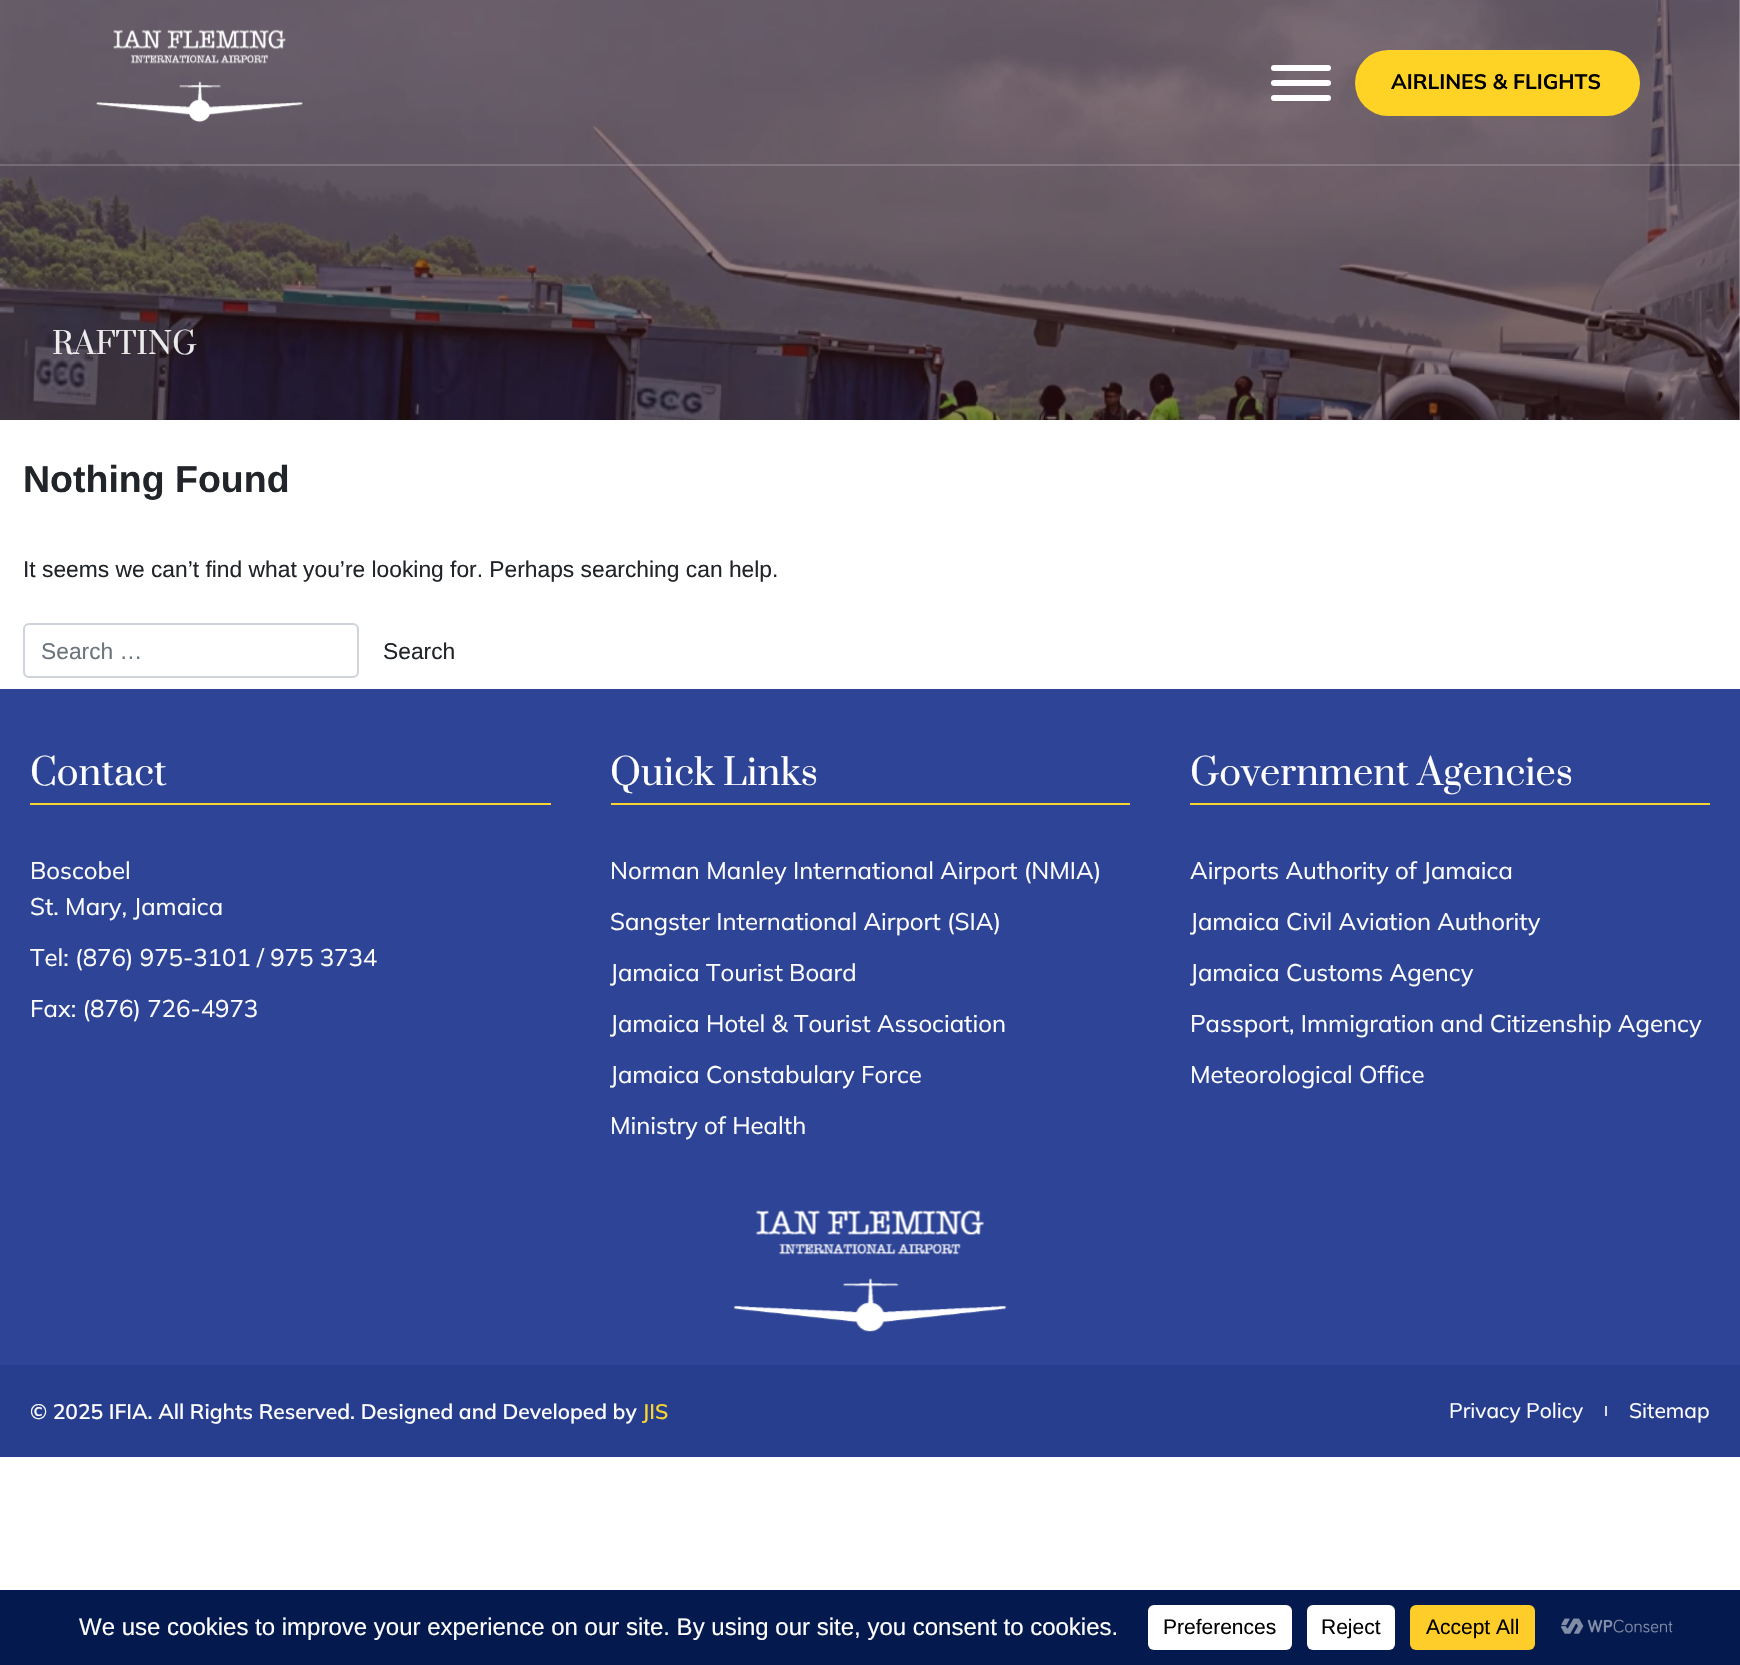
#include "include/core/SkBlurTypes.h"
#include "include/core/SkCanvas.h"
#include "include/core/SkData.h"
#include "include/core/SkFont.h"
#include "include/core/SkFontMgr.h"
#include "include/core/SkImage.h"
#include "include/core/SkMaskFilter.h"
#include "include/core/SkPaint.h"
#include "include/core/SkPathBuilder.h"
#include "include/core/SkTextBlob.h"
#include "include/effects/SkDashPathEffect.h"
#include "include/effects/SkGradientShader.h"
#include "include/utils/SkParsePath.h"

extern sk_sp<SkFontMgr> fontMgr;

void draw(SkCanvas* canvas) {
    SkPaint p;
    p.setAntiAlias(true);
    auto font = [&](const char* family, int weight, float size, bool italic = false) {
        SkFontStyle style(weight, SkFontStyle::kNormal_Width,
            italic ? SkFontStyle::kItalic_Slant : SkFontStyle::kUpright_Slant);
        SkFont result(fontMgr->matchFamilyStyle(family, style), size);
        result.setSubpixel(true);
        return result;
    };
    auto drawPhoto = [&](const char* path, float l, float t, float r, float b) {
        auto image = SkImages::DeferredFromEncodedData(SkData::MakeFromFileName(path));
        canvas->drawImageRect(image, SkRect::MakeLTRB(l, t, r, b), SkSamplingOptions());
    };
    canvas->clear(0xFFFFFFFF);
    drawPhoto("media/2.png", 0, 0, 1740, 420);
    p.setColor(0x30EBEBEB);
    canvas->drawRect(SkRect::MakeLTRB(0, 164, 1740, 166), p);
    drawPhoto("media/1.png", 96, 29, 303, 123);
    p.setColor(0xFFFFFFFF);
    canvas->drawRoundRect(SkRect::MakeLTRB(1271, 65, 1331, 71), 3, 3, p);
    canvas->drawRoundRect(SkRect::MakeLTRB(1271, 80, 1331, 86), 3, 3, p);
    canvas->drawRoundRect(SkRect::MakeLTRB(1271, 95, 1331, 101), 3, 3, p);
    p.setColor(0xFFFED325);
    canvas->drawRoundRect(SkRect::MakeLTRB(1355, 50, 1640, 116), 33, 33, p);
    auto font1 = font("Mulish", 700, 21);
    p.setColor(0xFF000000);
    canvas->drawString("AIRLINES & FLIGHTS", 1391, 89, font1, p);
    auto font2 = font("Prata", 400, 30);
    p.setColor(0xFFEBEBEB);
    canvas->drawString("RAFTING", 52, 354, font2, p);
    auto font3 = font("Liberation Sans", 700, 37.5f);
    p.setColor(0xFF212529);
    canvas->drawString("Nothing Found", 23, 492, font3, p);
    auto font4 = font("Liberation Sans", 400, 22.8f);
    canvas->drawString("It seems we can’t find what you’re looking for. Perhaps searching can help.", 23, 577, font4, p);
    p.setStyle(SkPaint::kStroke_Style);
    p.setStrokeWidth(2);
    p.setColor(0xFFCED4DA);
    canvas->drawRoundRect(SkRect::MakeLTRB(24, 624, 358, 677), 5, 5, p);
    p.setStyle(SkPaint::kFill_Style);
    p.setColor(0xFF6C757D);
    canvas->drawString("Search …", 41, 659, font4, p);
    p.setColor(0xFF212529);
    canvas->drawString("Search", 383, 659, font4, p);
    p.setColor(0xFF2E4496);
    canvas->drawRect(SkRect::MakeLTRB(0, 689, 1740, 1365), p);
    auto font5 = font("Prata", 400, 36);
    p.setColor(0xFFFFFFFF);
    canvas->drawString("Contact", 30, 785, font5, p);
    p.setColor(0xFFF9D330);
    canvas->drawRect(SkRect::MakeLTRB(30, 803, 551, 805), p);
    auto font6 = font("Mulish", 400, 24);
    p.setColor(0xFFFFFFFF);
    {
        const struct { const char* s; float x, y; } items[] = {
            {"Boscobel", 30, 879},
            {"St. Mary, Jamaica", 30, 915},
            {"Tel: (876) 975-3101 / 975 3734", 30, 966},
            {"Fax: (876) 726-4973", 30, 1017},
        };
        for (auto [s, x, y] : items) {
            canvas->drawString(s, x, y, font6, p);
        }
    }
    canvas->drawString("Quick Links", 610, 785, font5, p);
    p.setColor(0xFFF9D330);
    canvas->drawRect(SkRect::MakeLTRB(611, 803, 1130, 805), p);
    p.setColor(0xFFFFFFFF);
    {
        const struct { const char* s; float x, y; } items[] = {
            {"Norman Manley International Airport (NMIA)", 610, 879},
            {"Sangster International Airport (SIA)", 610, 930},
            {"Jamaica Tourist Board", 610, 981},
            {"Jamaica Hotel & Tourist Association", 610, 1032},
            {"Jamaica Constabulary Force", 610, 1083},
            {"Ministry of Health", 610, 1134},
        };
        for (auto [s, x, y] : items) {
            canvas->drawString(s, x, y, font6, p);
        }
    }
    canvas->drawString("Government Agencies", 1190, 785, font5, p);
    p.setColor(0xFFF9D330);
    canvas->drawRect(SkRect::MakeLTRB(1190, 803, 1710, 805), p);
    p.setColor(0xFFFFFFFF);
    {
        const struct { const char* s; float x, y; } items[] = {
            {"Airports Authority of Jamaica", 1190, 879},
            {"Jamaica Civil Aviation Authority", 1190, 930},
            {"Jamaica Customs Agency", 1190, 981},
            {"Passport, Immigration and Citizenship Agency", 1190, 1032},
            {"Meteorological Office", 1190, 1083},
        };
        for (auto [s, x, y] : items) {
            canvas->drawString(s, x, y, font6, p);
        }
    }
    drawPhoto("media/3.png", 733, 1210, 1007, 1332);
    p.setColor(0xFF273D8D);
    canvas->drawRect(SkRect::MakeLTRB(0, 1365, 1740, 1457), p);
    auto font7 = font("Mulish", 600, 21);
    p.setColor(0xFFFFFFFF);
    canvas->drawString("© 2025 IFIA. All Rights Reserved. Designed and Developed by", 30, 1419, font7, p);
    p.setColor(0xFFF9D330);
    canvas->drawString("JIS", 642, 1419, font7, p);
    auto font8 = font("Mulish", 400, 21);
    p.setColor(0xFFFFFFFF);
    canvas->drawString("Privacy Policy", 1449, 1418, font8, p);
    p.setColor(0xFFDDDDDD);
    canvas->drawRect(SkRect::MakeLTRB(1605, 1406, 1607, 1416), p);
    p.setColor(0xFFFFFFFF);
    canvas->drawString("Sitemap", 1629, 1418, font8, p);
    p.setColor(0xFF04194E);
    canvas->drawRect(SkRect::MakeLTRB(0, 1590, 1740, 1665), p);
    auto font9 = font("Liberation Sans", 400, 24);
    p.setColor(0xFFFFFFFF);
    canvas->drawString("We use cookies to improve your experience on our site. By using our site, you consent to cookies.", 79, 1635, font9, p);
    canvas->drawRoundRect(SkRect::MakeLTRB(1148, 1605, 1292, 1650), 6, 6, p);
    auto font10 = font("Liberation Sans", 400, 21);
    p.setColor(0xFF000000);
    canvas->drawString("Preferences", 1163, 1634, font10, p);
    p.setColor(0xFFFFFFFF);
    canvas->drawRoundRect(SkRect::MakeLTRB(1307, 1605, 1395, 1650), 6, 6, p);
    p.setColor(0xFF000000);
    canvas->drawString("Reject", 1321, 1634, font10, p);
    p.setColor(0xFFFFCD2A);
    canvas->drawRoundRect(SkRect::MakeLTRB(1410, 1605, 1535, 1650), 6, 6, p);
    p.setColor(0xFF000000);
    canvas->drawString("Accept All", 1426, 1634, font10, p);
    drawPhoto("media/4.png", 1561, 1618, 1673, 1634);
}
